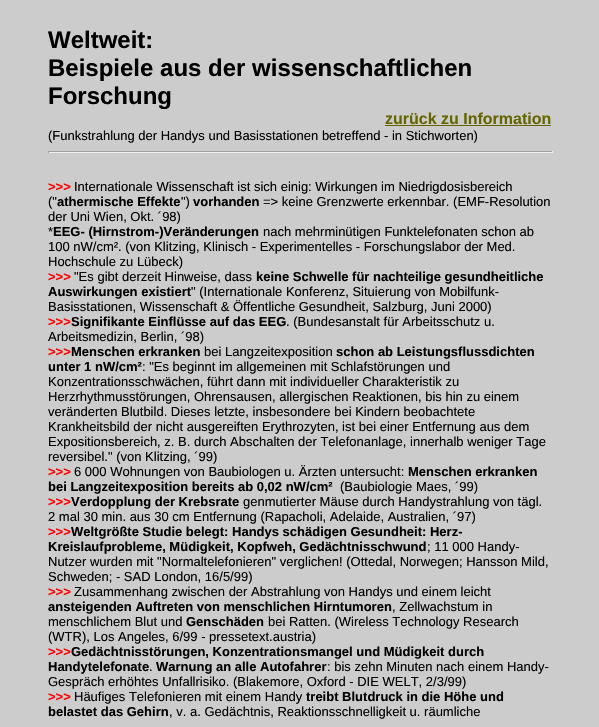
#include "include/core/SkBlurTypes.h"
#include "include/core/SkCanvas.h"
#include "include/core/SkData.h"
#include "include/core/SkFont.h"
#include "include/core/SkFontMgr.h"
#include "include/core/SkImage.h"
#include "include/core/SkMaskFilter.h"
#include "include/core/SkPaint.h"
#include "include/core/SkPathBuilder.h"
#include "include/core/SkTextBlob.h"
#include "include/effects/SkDashPathEffect.h"
#include "include/effects/SkGradientShader.h"
#include "include/utils/SkParsePath.h"

extern sk_sp<SkFontMgr> fontMgr;

void draw(SkCanvas* canvas) {
    SkPaint p;
    p.setAntiAlias(true);
    auto font = [&](const char* family, int weight, float size, bool italic = false) {
        SkFontStyle style(weight, SkFontStyle::kNormal_Width,
            italic ? SkFontStyle::kItalic_Slant : SkFontStyle::kUpright_Slant);
        SkFont result(fontMgr->matchFamilyStyle(family, style), size);
        result.setSubpixel(true);
        return result;
    };
    canvas->clear(0xFFCCCCCC);
    auto font1 = font("Liberation Sans", 700, 24);
    p.setColor(0xFF000000);
    {
        const struct { const char* s; float x, y; } items[] = {
            {"Weltweit:", 48, 48},
            {"Beispiele aus der wissenschaftlichen", 48, 76},
            {"Forschung", 48, 104},
        };
        for (auto [s, x, y] : items) {
            canvas->drawString(s, x, y, font1, p);
        }
    }
    auto font2 = font("Liberation Sans", 700, 16);
    p.setColor(0xFF666600);
    canvas->drawString("zurück zu Information", 385, 124, font2, p);
    canvas->drawRect(SkRect::MakeLTRB(385, 125, 551, 126), p);
    auto font3 = font("Liberation Sans", 400, 13);
    p.setColor(0xFF000000);
    canvas->drawString("(Funkstrahlung der Handys und Basisstationen betreffend - in Stichworten)", 48, 140, font3, p);
    {
        const struct { float l, t, r, b; SkColor color; } items[] = {
            {48, 151, 553, 152, 0xFF9F9F9F},
            {552, 151, 553, 153, 0xFFEEEEEE},
            {48, 152, 553, 153, 0xFFEEEEEE},
            {48, 151, 49, 153, 0xFF9F9F9F},
        };
        for (auto [l, t, r, b, color] : items) {
            p.setColor(color);
            canvas->drawRect(SkRect::MakeLTRB(l, t, r, b), p);
        }
    }
    auto font4 = font("Liberation Sans", 700, 13);
    p.setColor(0xFFFF0000);
    canvas->drawString(">>>", 48, 191, font4, p);
    p.setColor(0xFF000000);
    canvas->drawString("Internationale Wissenschaft ist sich einig: Wirkungen im Niedrigdosisbereich", 74, 191, font3, p);
    canvas->drawString("(\"", 48, 206, font3, p);
    canvas->drawString("athermische Effekte", 57, 206, font4, p);
    canvas->drawString("\")", 181, 206, font3, p);
    canvas->drawString("vorhanden", 193, 206, font4, p);
    {
        const struct { const char* s; float x, y; } items[] = {
            {"=> keine Grenzwerte erkennbar. (EMF-Resolution", 263, 206},
            {"der Uni Wien, Okt. ´98)", 48, 221},
            {"*", 48, 236},
        };
        for (auto [s, x, y] : items) {
            canvas->drawString(s, x, y, font3, p);
        }
    }
    canvas->drawString("EEG- (Hirnstrom-)Veränderungen", 53, 236, font4, p);
    {
        const struct { const char* s; float x, y; } items[] = {
            {"nach mehrminütigen Funktelefonaten schon ab", 263, 236},
            {"100 nW/cm². (von Klitzing, Klinisch - Experimentelles - Forschungslabor der Med.", 48, 251},
            {"Hochschule zu Lübeck)", 48, 266},
        };
        for (auto [s, x, y] : items) {
            canvas->drawString(s, x, y, font3, p);
        }
    }
    p.setColor(0xFFFF0000);
    canvas->drawString(">>>", 48, 281, font4, p);
    p.setColor(0xFF000000);
    canvas->drawString("\"Es gibt derzeit Hinweise, dass", 74, 281, font3, p);
    canvas->drawString("keine Schwelle für nachteilige gesundheitliche", 256, 281, font4, p);
    canvas->drawString("Auswirkungen existiert", 48, 296, font4, p);
    canvas->drawString("\" (Internationale Konferenz, Situierung von Mobilfunk-", 191, 296, font3, p);
    canvas->drawString("Basisstationen, Wissenschaft & Öffentliche Gesundheit, Salzburg, Juni 2000)", 48, 311, font3, p);
    p.setColor(0xFFFF0000);
    canvas->drawString(">>>", 48, 326, font4, p);
    p.setColor(0xFF000000);
    canvas->drawString("Signifikante Einflüsse auf das EEG", 71, 326, font4, p);
    canvas->drawString(". (Bundesanstalt für Arbeitsschutz u.", 286, 326, font3, p);
    canvas->drawString("Arbeitsmedizin, Berlin, ´98)", 48, 341, font3, p);
    p.setColor(0xFFFF0000);
    canvas->drawString(">>>", 48, 356, font4, p);
    p.setColor(0xFF000000);
    canvas->drawString("Menschen erkranken", 71, 356, font4, p);
    canvas->drawString("bei Langzeitexposition", 204, 356, font3, p);
    canvas->drawString("schon ab Leistungsflussdichten", 336, 356, font4, p);
    canvas->drawString("unter 1 nW/cm²", 48, 371, font4, p);
    {
        const struct { const char* s; float x, y; } items[] = {
            {": \"Es beginnt im allgemeinen mit Schlafstörungen und", 142, 371},
            {"Konzentrationsschwächen, führt dann mit individueller Charakteristik zu", 48, 386},
            {"Herzrhythmusstörungen, Ohrensausen, allergischen Reaktionen, bis hin zu einem", 48, 401},
            {"veränderten Blutbild. Dieses letzte, insbesondere bei Kindern beobachtete", 48, 416},
            {"Krankheitsbild der nicht ausgereiften Erythrozyten, ist bei einer Entfernung aus dem", 48, 431},
            {"Expositionsbereich, z. B. durch Abschalten der Telefonanlage, innerhalb weniger Tage", 48, 446},
            {"reversibel.\" (von Klitzing, ´99)", 48, 461},
        };
        for (auto [s, x, y] : items) {
            canvas->drawString(s, x, y, font3, p);
        }
    }
    p.setColor(0xFFFF0000);
    canvas->drawString(">>>", 48, 476, font4, p);
    p.setColor(0xFF000000);
    canvas->drawString("6 000 Wohnungen von Baubiologen u. Ärzten untersucht:", 74, 476, font3, p);
    canvas->drawString("Menschen erkranken", 408, 476, font4, p);
    canvas->drawString("bei Langzeitexposition bereits ab 0,02 nW/cm²", 48, 491, font4, p);
    canvas->drawString("(Baubiologie Maes, ´99)", 340, 491, font3, p);
    p.setColor(0xFFFF0000);
    canvas->drawString(">>>", 48, 506, font4, p);
    p.setColor(0xFF000000);
    canvas->drawString("Verdopplung der Krebsrate", 71, 506, font4, p);
    canvas->drawString("genmutierter Mäuse durch Handystrahlung von tägl.", 243, 506, font3, p);
    canvas->drawString("2 mal 30 min. aus 30 cm Entfernung (Rapacholi, Adelaide, Australien, ´97)", 48, 521, font3, p);
    p.setColor(0xFFFF0000);
    canvas->drawString(">>>", 48, 536, font4, p);
    p.setColor(0xFF000000);
    canvas->drawString("Weltgrößte Studie belegt: Handys schädigen Gesundheit: Herz-", 71, 536, font4, p);
    canvas->drawString("Kreislaufprobleme, Müdigkeit, Kopfweh, Gedächtnisschwund", 48, 551, font4, p);
    {
        const struct { const char* s; float x, y; } items[] = {
            {"; 11 000 Handy-", 427, 551},
            {"Nutzer wurden mit \"Normaltelefonieren\" verglichen! (Ottedal, Norwegen; Hansson Mild,", 48, 566},
            {"Schweden; - SAD London, 16/5/99)", 48, 581},
        };
        for (auto [s, x, y] : items) {
            canvas->drawString(s, x, y, font3, p);
        }
    }
    p.setColor(0xFFFF0000);
    canvas->drawString(">>>", 48, 596, font4, p);
    p.setColor(0xFF000000);
    canvas->drawString("Zusammenhang zwischen der Abstrahlung von Handys und einem leicht", 74, 596, font3, p);
    canvas->drawString("ansteigenden Auftreten von menschlichen Hirntumoren", 48, 611, font4, p);
    canvas->drawString(", Zellwachstum in", 392, 611, font3, p);
    canvas->drawString("menschlichem Blut und", 48, 626, font3, p);
    canvas->drawString("Genschäden", 186, 626, font4, p);
    canvas->drawString("bei Ratten. (Wireless Technology Research", 268, 626, font3, p);
    canvas->drawString("(WTR), Los Angeles, 6/99 - pressetext.austria)", 48, 641, font3, p);
    p.setColor(0xFFFF0000);
    canvas->drawString(">>>", 48, 656, font4, p);
    p.setColor(0xFF000000);
    canvas->drawString("Gedächtnisstörungen, Konzentrationsmangel und Müdigkeit durch", 71, 656, font4, p);
    canvas->drawString("Handytelefonate", 48, 671, font4, p);
    canvas->drawString(".", 149, 671, font3, p);
    canvas->drawString("Warnung an alle Autofahrer", 156, 671, font4, p);
    canvas->drawString(": bis zehn Minuten nach einem Handy-", 327, 671, font3, p);
    canvas->drawString("Gespräch erhöhtes Unfallrisiko. (Blakemore, Oxford - DIE WELT, 2/3/99)", 48, 686, font3, p);
    p.setColor(0xFFFF0000);
    canvas->drawString(">>>", 48, 701, font4, p);
    p.setColor(0xFF000000);
    canvas->drawString("Häufiges Telefonieren mit einem Handy", 74, 701, font3, p);
    canvas->drawString("treibt Blutdruck in die Höhe und", 306, 701, font4, p);
    canvas->drawString("belastet das Gehirn", 48, 716, font4, p);
    canvas->drawString(", v. a. Gedächtnis, Reaktionsschnelligkeit u. räumliche", 169, 716, font3, p);
}
